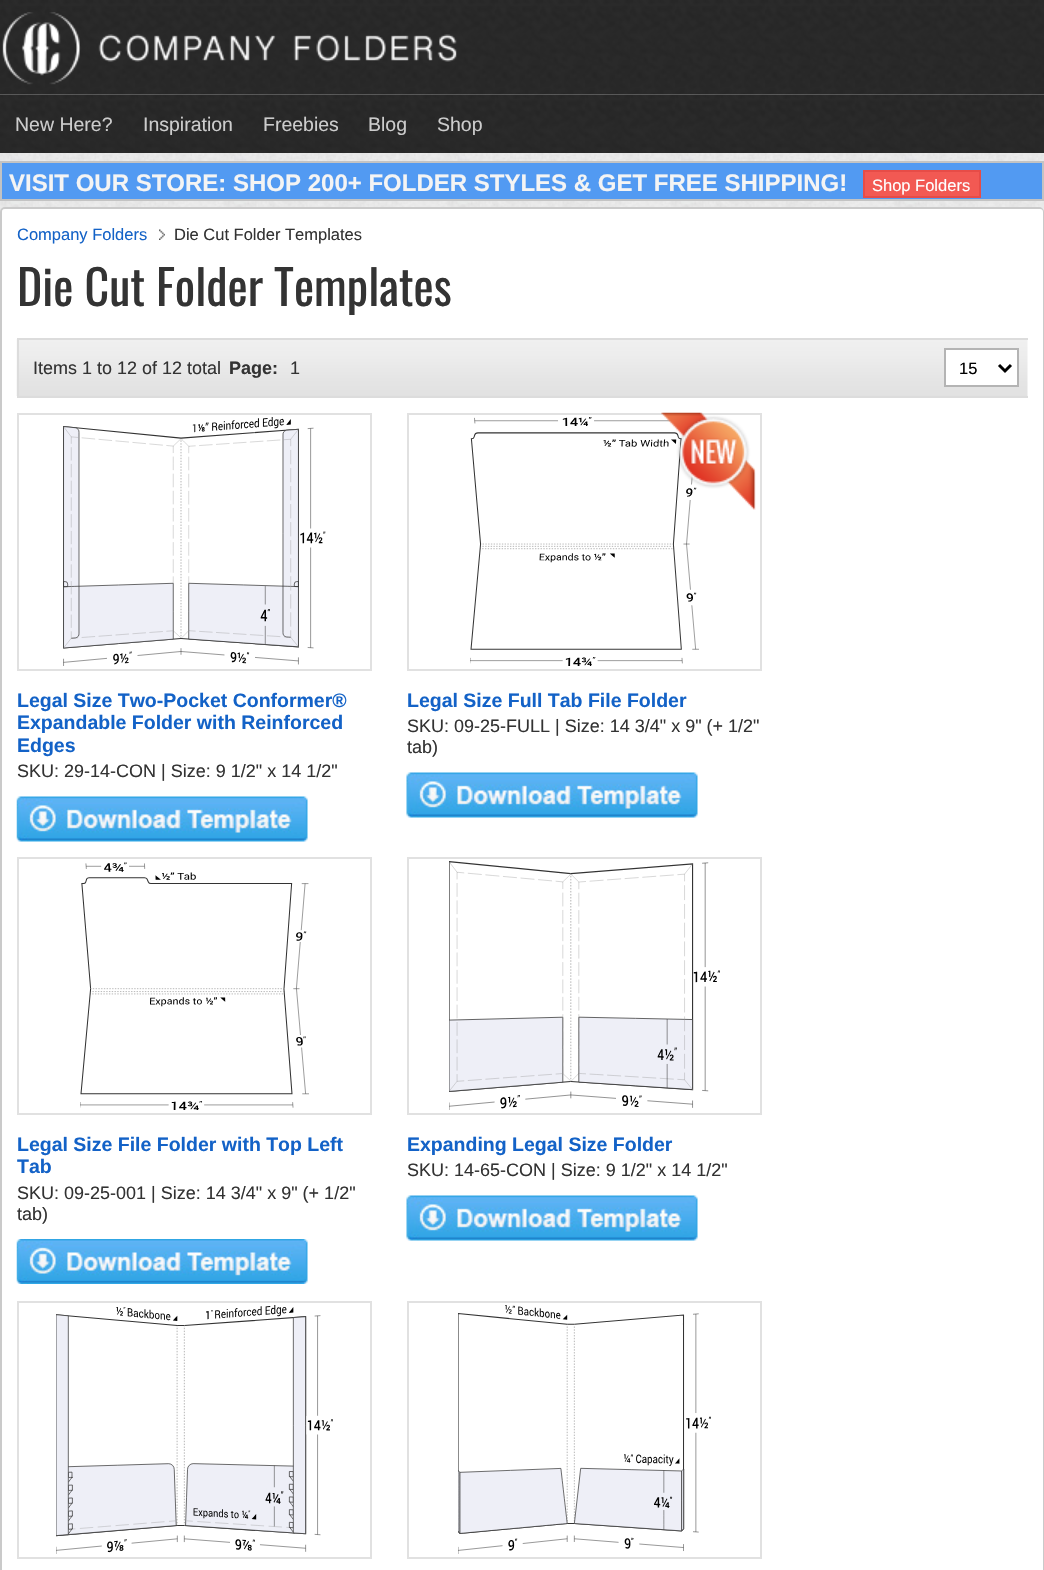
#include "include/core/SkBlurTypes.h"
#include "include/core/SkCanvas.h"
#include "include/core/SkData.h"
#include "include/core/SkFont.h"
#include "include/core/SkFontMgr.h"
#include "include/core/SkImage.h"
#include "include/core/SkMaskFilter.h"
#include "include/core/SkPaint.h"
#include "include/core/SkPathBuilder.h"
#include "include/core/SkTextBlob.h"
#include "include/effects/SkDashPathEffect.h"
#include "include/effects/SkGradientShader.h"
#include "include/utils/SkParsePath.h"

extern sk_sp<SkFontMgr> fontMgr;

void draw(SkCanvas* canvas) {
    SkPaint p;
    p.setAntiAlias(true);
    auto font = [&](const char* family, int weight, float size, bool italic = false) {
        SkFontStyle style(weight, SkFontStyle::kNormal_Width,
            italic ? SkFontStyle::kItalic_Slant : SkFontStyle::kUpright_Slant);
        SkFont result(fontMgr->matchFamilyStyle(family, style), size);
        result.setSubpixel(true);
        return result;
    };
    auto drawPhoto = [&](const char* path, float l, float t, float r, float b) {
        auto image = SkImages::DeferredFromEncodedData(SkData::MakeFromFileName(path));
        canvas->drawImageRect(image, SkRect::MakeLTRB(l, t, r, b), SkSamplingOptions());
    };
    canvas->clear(0xFFFFFFFF);
    drawPhoto("media/1.png", 0, 94, 1044, 207);
    drawPhoto("media/2.png", 0, 0, 1044, 95);
    drawPhoto("media/3.png", 2, 12, 457, 85);
    drawPhoto("media/4.png", 0, 94, 1044, 153);
    auto font1 = font("Liberation Sans", 400, 19.5f);
    p.setColor(0xFFCCCCCC);
    {
        const struct { const char* s; float x, y; } items[] = {
            {"New Here?", 15, 131},
            {"Inspiration", 143, 131},
            {"Freebies", 263, 131},
            {"Blog", 368, 131},
            {"Shop", 437, 131},
        };
        for (auto [s, x, y] : items) {
            canvas->drawString(s, x, y, font1, p);
        }
    }
    p.setColor(0xFF529AF2);
    canvas->drawRect(SkRect::MakeLTRB(1, 162, 1043, 200), p);
    p.setStyle(SkPaint::kStroke_Style);
    p.setStrokeWidth(2);
    p.setColor(0xFFC3C3C3);
    canvas->drawRect(SkRect::MakeLTRB(1, 162, 1043, 200), p);
    auto font2 = font("Liberation Sans", 700, 24);
    p.setStyle(SkPaint::kFill_Style);
    p.setColor(0xFFF4F4F4);
    canvas->drawString("VISIT OUR STORE: SHOP 200+ FOLDER STYLES & GET FREE SHIPPING!", 9, 191, font2, p);
    p.setColor(0xFFF25953);
    canvas->drawRect(SkRect::MakeLTRB(864, 171, 980, 197), p);
    p.setStyle(SkPaint::kStroke_Style);
    p.setColor(0xFFE74C47);
    canvas->drawRect(SkRect::MakeLTRB(864, 171, 980, 197), p);
    auto font3 = font("Liberation Sans", 400, 16.5f);
    p.setStyle(SkPaint::kFill_Style);
    p.setColor(0xFFFFFFFF);
    canvas->drawString("Shop Folders", 872, 191, font3, p);
    drawPhoto("media/5.png", 0, 207, 1044, 212);
    p.setStyle(SkPaint::kStroke_Style);
    p.setColor(0xFFCACACA);
    canvas->drawRoundRect(SkRect::MakeLTRB(1, 208, 1043, 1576), 4, 4, p);
    p.setStyle(SkPaint::kFill_Style);
    p.setColor(0xFFFFFFFF);
    canvas->drawRoundRect(SkRect::MakeLTRB(2, 209, 1043, 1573), 3, 3, p);
    drawPhoto("media/6.png", 159, 229, 165, 240);
    p.setColor(0xFF1362C7);
    canvas->drawString("Company Folders", 17, 240, font3, p);
    p.setColor(0xFF333333);
    canvas->drawString("Die Cut Folder Templates", 174, 240, font3, p);
    auto font4 = font("Oswald", 400, 48);
    canvas->drawString("Die Cut Folder Templates", 17, 306, font4, p);
    drawPhoto("media/7.png", 16, 339, 1028, 396);
    canvas->save();
    canvas->clipRect(SkRect::MakeLTRB(17, 338, 1028, 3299));
    p.setColor(0xFFDCDCDC);
    canvas->drawPath(SkPathBuilder().moveTo(17, 338).lineTo(17, 398).lineTo(1043, 398).lineTo(1043, 396).lineTo(19, 396).lineTo(19, 340).lineTo(1043, 340).lineTo(1043, 338).close().detach(), p);
    canvas->restore();
    auto font5 = font("Liberation Sans", 400, 18);
    p.setColor(0xFF333333);
    canvas->drawString("Items 1 to 12 of 12 total", 33, 374, font5, p);
    auto font6 = font("Liberation Sans", 700, 18);
    canvas->drawString("Page:", 229, 374, font6, p);
    canvas->drawString("1", 290, 374, font5, p);
    p.setColor(0xFFFFFFFF);
    canvas->drawRect(SkRect::MakeLTRB(945, 349, 1018, 386), p);
    p.setStyle(SkPaint::kStroke_Style);
    p.setColor(0xFFB4B4B4);
    canvas->drawRect(SkRect::MakeLTRB(945, 349, 1018, 386), p);
    p.setStrokeWidth(3);
    p.setColor(0xFF000000);
    canvas->drawPath(SkPathBuilder().moveTo(999, 365).lineTo(1005, 371).lineTo(1011, 365).detach(), p);
    p.setStyle(SkPaint::kFill_Style);
    canvas->drawString("15", 959, 374, font3, p);
    p.setStyle(SkPaint::kStroke_Style);
    p.setStrokeWidth(2);
    p.setColor(0xFFE1E1E1);
    canvas->drawRect(SkRect::MakeLTRB(18, 414, 371, 670), p);
    drawPhoto("media/8.png", 63, 417, 326, 666);
    auto font7 = font("Liberation Sans", 700, 19.5f);
    p.setStyle(SkPaint::kFill_Style);
    p.setColor(0xFF1362C7);
    {
        const struct { const char* s; float x, y; } items[] = {
            {"Legal Size Two-Pocket Conformer®", 17, 707},
            {"Expandable Folder with Reinforced", 17, 729},
            {"Edges", 17, 752},
        };
        for (auto [s, x, y] : items) {
            canvas->drawString(s, x, y, font7, p);
        }
    }
    p.setColor(0xFF333333);
    canvas->drawString("SKU: 29-14-CON | Size: 9 1/2\" x 14 1/2\"", 17, 777, font5, p);
    drawPhoto("media/9.png", 16, 796, 308, 842);
    p.setStyle(SkPaint::kStroke_Style);
    p.setColor(0xFFE1E1E1);
    canvas->drawRect(SkRect::MakeLTRB(408, 414, 761, 670), p);
    drawPhoto("media/11.png", 470, 417, 699, 666);
    drawPhoto("media/10.png", 661, 412, 756, 510);
    p.setStyle(SkPaint::kFill_Style);
    p.setColor(0xFF1362C7);
    canvas->drawString("Legal Size Full Tab File Folder", 407, 707, font7, p);
    p.setColor(0xFF333333);
    canvas->drawString("SKU: 09-25-FULL | Size: 14 3/4\" x 9\" (+ 1/2\"", 407, 732, font5, p);
    canvas->drawString("tab)", 407, 753, font5, p);
    drawPhoto("media/12.png", 406, 772, 698, 818);
    p.setStyle(SkPaint::kStroke_Style);
    p.setColor(0xFFE1E1E1);
    canvas->drawRect(SkRect::MakeLTRB(18, 858, 371, 1114), p);
    drawPhoto("media/13.png", 80, 862, 309, 1110);
    p.setStyle(SkPaint::kFill_Style);
    p.setColor(0xFF1362C7);
    canvas->drawString("Legal Size File Folder with Top Left", 17, 1151, font7, p);
    canvas->save();
    canvas->clipRect(SkRect::MakeLTRB(17, 413, 1028, 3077));
    canvas->drawString("Tab", 17, 1173, font7, p);
    canvas->restore();
    p.setColor(0xFF333333);
    canvas->drawString("SKU: 09-25-001 | Size: 14 3/4\" x 9\" (+ 1/2\"", 17, 1199, font5, p);
    canvas->drawString("tab)", 17, 1220, font5, p);
    drawPhoto("media/14.png", 16, 1239, 308, 1284);
    p.setStyle(SkPaint::kStroke_Style);
    p.setColor(0xFFE1E1E1);
    canvas->drawRect(SkRect::MakeLTRB(408, 858, 761, 1114), p);
    drawPhoto("media/15.png", 449, 861, 720, 1110);
    p.setStyle(SkPaint::kFill_Style);
    p.setColor(0xFF1362C7);
    canvas->drawString("Expanding Legal Size Folder", 407, 1151, font7, p);
    p.setColor(0xFF333333);
    canvas->drawString("SKU: 14-65-CON | Size: 9 1/2\" x 14 1/2\"", 407, 1176, font5, p);
    drawPhoto("media/12.png", 406, 1195, 698, 1241);
    p.setStyle(SkPaint::kStroke_Style);
    p.setColor(0xFFE1E1E1);
    canvas->drawRect(SkRect::MakeLTRB(18, 1302, 371, 1558), p);
    drawPhoto("media/16.png", 56, 1305, 333, 1554);
    canvas->drawRect(SkRect::MakeLTRB(408, 1302, 761, 1558), p);
    drawPhoto("media/17.png", 458, 1305, 711, 1554);
}
